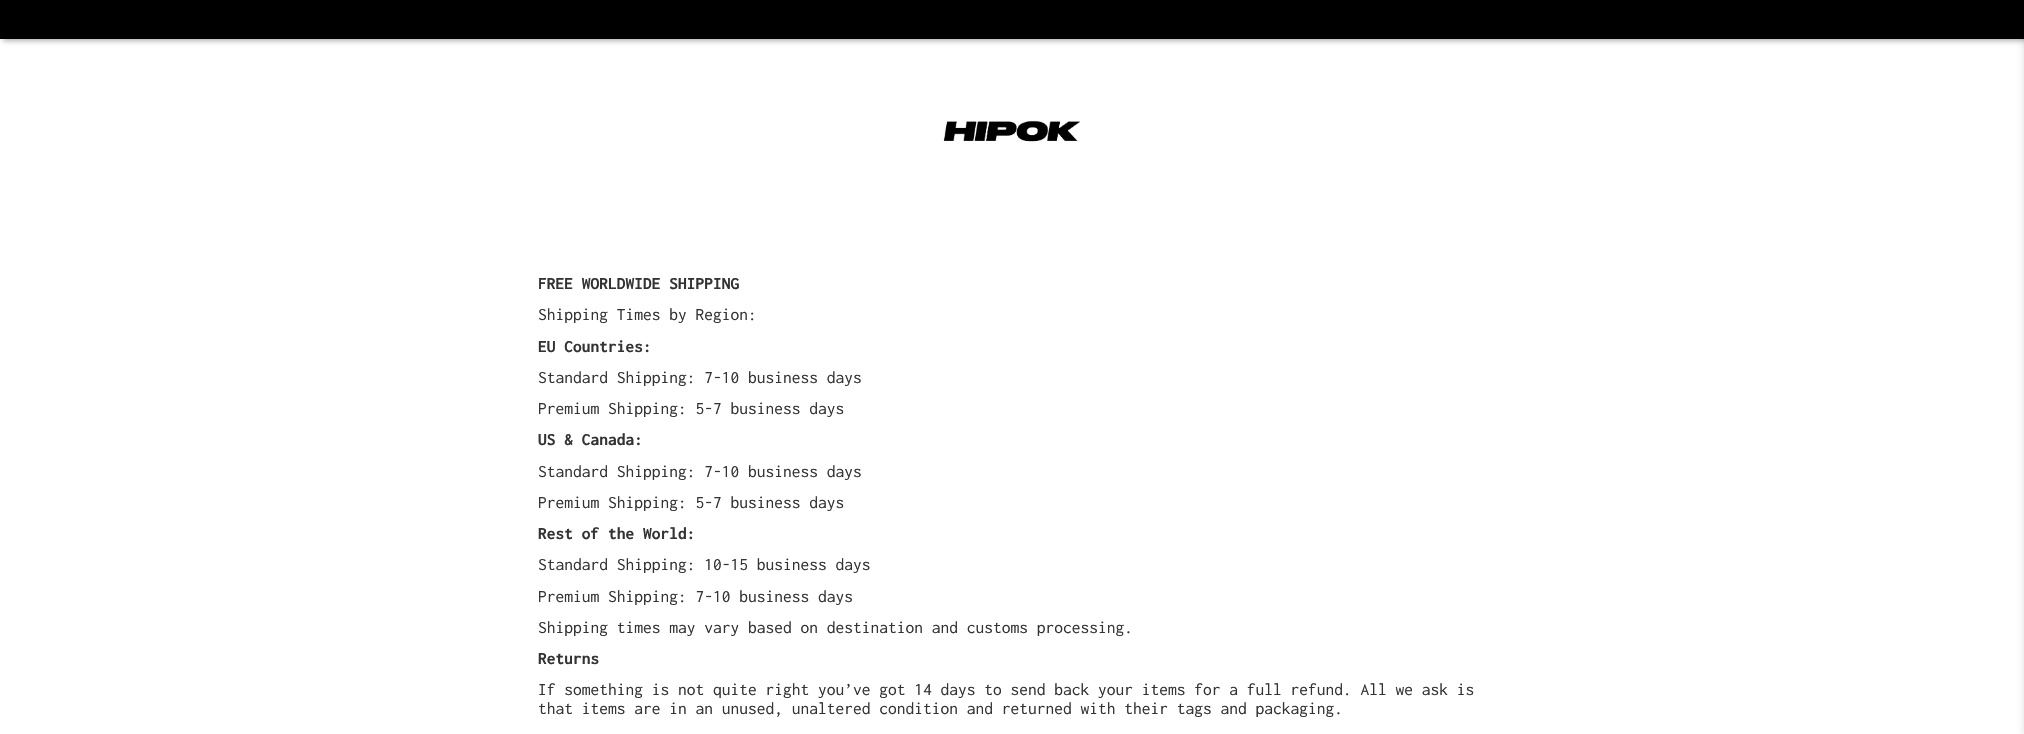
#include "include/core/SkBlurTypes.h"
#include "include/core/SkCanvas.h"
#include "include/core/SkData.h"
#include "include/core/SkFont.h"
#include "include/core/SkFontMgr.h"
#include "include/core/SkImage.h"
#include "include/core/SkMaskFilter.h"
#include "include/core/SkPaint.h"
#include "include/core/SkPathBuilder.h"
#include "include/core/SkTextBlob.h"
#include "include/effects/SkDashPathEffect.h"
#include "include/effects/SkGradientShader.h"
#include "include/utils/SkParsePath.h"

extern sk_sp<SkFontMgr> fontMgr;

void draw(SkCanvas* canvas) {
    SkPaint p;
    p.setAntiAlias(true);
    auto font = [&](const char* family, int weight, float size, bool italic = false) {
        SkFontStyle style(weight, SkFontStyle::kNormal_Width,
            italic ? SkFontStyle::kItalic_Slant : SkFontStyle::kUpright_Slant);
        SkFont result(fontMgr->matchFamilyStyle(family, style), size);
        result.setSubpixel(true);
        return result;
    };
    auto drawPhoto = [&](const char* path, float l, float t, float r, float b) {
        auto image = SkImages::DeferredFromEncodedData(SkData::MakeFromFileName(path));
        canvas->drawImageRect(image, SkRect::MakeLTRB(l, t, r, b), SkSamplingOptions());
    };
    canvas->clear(0xFFFFFFFF);
    p.setColor(0x4D000000);
    p.setMaskFilter(SkMaskFilter::MakeBlur(kNormal_SkBlurStyle, 2.5f));
    canvas->drawRect(SkRect::MakeLTRB(3, 3, 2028, 41), p);
    p.setMaskFilter(nullptr);
    p.setColor(0xFF000000);
    canvas->drawRect(SkRect::MakeLTRB(0, 0, 2024, 39), p);
    drawPhoto("media/1.png", 943, 120, 1080, 142);
    auto font1 = font("Inconsolata", 700, 17.5f);
    p.setColor(0xFF333333);
    canvas->drawString("FREE WORLDWIDE SHIPPING", 538, 289, font1, p);
    auto font2 = font("Inconsolata", 400, 17.5f);
    canvas->drawString("Shipping Times by Region:", 538, 320, font2, p);
    canvas->drawString("EU Countries:", 538, 352, font1, p);
    canvas->drawString("Standard Shipping: 7-10 business days", 538, 383, font2, p);
    canvas->drawString("Premium Shipping: 5-7 business days", 538, 414, font2, p);
    canvas->drawString("US & Canada:", 538, 445, font1, p);
    canvas->drawString("Standard Shipping: 7-10 business days", 538, 477, font2, p);
    canvas->drawString("Premium Shipping: 5-7 business days", 538, 508, font2, p);
    canvas->drawString("Rest of the World:", 538, 539, font1, p);
    {
        const struct { const char* s; float x, y; } items[] = {
            {"Standard Shipping: 10-15 business days", 538, 570},
            {"Premium Shipping: 7-10 business days", 538, 602},
            {"Shipping times may vary based on destination and customs processing.", 538, 633},
        };
        for (auto [s, x, y] : items) {
            canvas->drawString(s, x, y, font2, p);
        }
    }
    canvas->drawString("Returns", 538, 664, font1, p);
    canvas->drawString("If something is not quite right you’ve got 14 days to send back your items for a full refund. All we ask is", 538, 695, font2, p);
    canvas->drawString("that items are in an unused, unaltered condition and returned with their tags and packaging.", 538, 714, font2, p);
    p.setColor(0x1A000000);
    p.setMaskFilter(SkMaskFilter::MakeBlur(kNormal_SkBlurStyle, 3));
    canvas->drawRect(SkRect::MakeLTRB(2023, 0, 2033, 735), p);
    p.setMaskFilter(nullptr);
}
